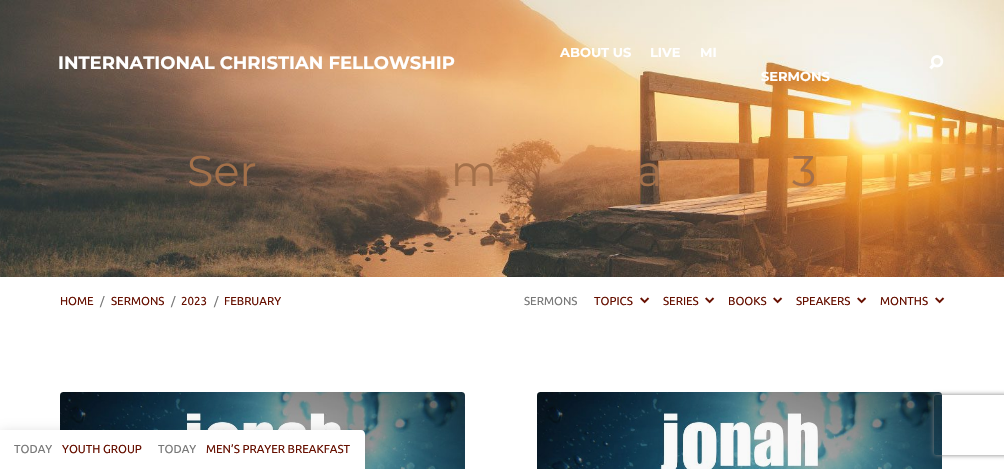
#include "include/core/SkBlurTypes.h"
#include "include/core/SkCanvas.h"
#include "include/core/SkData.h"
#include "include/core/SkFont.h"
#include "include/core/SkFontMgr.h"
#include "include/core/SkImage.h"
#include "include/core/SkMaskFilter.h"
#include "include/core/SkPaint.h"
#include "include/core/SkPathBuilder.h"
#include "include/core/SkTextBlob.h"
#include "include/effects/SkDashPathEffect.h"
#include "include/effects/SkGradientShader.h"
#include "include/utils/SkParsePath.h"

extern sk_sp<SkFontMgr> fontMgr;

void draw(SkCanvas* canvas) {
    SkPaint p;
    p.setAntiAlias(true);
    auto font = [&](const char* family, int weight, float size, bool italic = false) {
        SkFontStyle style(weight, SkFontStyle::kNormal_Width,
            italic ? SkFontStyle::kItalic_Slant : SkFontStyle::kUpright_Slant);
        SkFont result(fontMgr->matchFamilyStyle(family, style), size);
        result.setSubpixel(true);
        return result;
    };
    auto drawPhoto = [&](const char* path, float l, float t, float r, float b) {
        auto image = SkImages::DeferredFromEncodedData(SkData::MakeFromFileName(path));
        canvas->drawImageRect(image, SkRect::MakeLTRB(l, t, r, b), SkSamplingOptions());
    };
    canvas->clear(0xFFFFFFFF);
    drawPhoto("media/2.png", 0, 0, 1004, 277);
    auto font1 = font("Montserrat", 700, 18);
    p.setColor(0xFFFFFFFF);
    canvas->drawString("INTERNATIONAL CHRISTIAN FELLOWSHIP", 58, 69, font1, p);
    auto font2 = font("Montserrat", 700, 13);
    {
        const struct { const char* s; float x, y; } items[] = {
            {"ABOUT US", 560, 57},
            {"LIVE", 650, 57},
            {"MI", 700, 57},
            {"SERMONS", 761, 81},
        };
        for (auto [s, x, y] : items) {
            canvas->drawString(s, x, y, font2, p);
        }
    }
    drawPhoto("media/1.png", 929, 55, 944, 70);
    auto font3 = font("Montserrat", 400, 43);
    p.setColor(0xFFA47049);
    {
        const struct { const char* s; float x, y; } items[] = {
            {"Ser", 187, 186},
            {"m", 451, 186},
            {"a", 637, 186},
            {"3", 792, 186},
        };
        for (auto [s, x, y] : items) {
            canvas->drawString(s, x, y, font3, p);
        }
    }
    auto font4 = font("Ubuntu", 400, 11.5f);
    p.setColor(0xFF660F00);
    canvas->drawString("HOME", 60, 305, font4, p);
    p.setColor(0xFF777777);
    canvas->drawString("/", 100, 305, font4, p);
    p.setColor(0xFF660F00);
    canvas->drawString("SERMONS", 111, 305, font4, p);
    p.setColor(0xFF777777);
    canvas->drawString("/", 171, 305, font4, p);
    p.setColor(0xFF660F00);
    canvas->drawString("2023", 181, 305, font4, p);
    p.setColor(0xFF777777);
    canvas->drawString("/", 214, 305, font4, p);
    p.setColor(0xFF660F00);
    canvas->drawString("FEBRUARY", 224, 305, font4, p);
    p.setColor(0xFF777777);
    canvas->drawString("SERMONS", 524, 305, font4, p);
    p.setColor(0xFF660F00);
    canvas->drawString("TOPICS", 594, 305, font4, p);
    drawPhoto("media/3.png", 640, 297, 650, 304);
    canvas->drawString("SERIES", 663, 305, font4, p);
    drawPhoto("media/3.png", 705, 297, 715, 304);
    canvas->drawString("BOOKS", 728, 305, font4, p);
    drawPhoto("media/3.png", 773, 297, 783, 304);
    canvas->drawString("SPEAKERS", 796, 305, font4, p);
    drawPhoto("media/3.png", 857, 297, 867, 304);
    canvas->drawString("MONTHS", 880, 305, font4, p);
    drawPhoto("media/3.png", 935, 297, 945, 304);
    drawPhoto("media/4.png", 60, 392, 465, 469);
    drawPhoto("media/4.png", 537, 392, 942, 469);
    canvas->save();
    canvas->clipPath(SkPathBuilder(SkPathFillType::kEvenOdd).moveTo(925, 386).lineTo(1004, 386).lineTo(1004, 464).lineTo(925, 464).close().moveTo(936, 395).lineTo(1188, 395).cubicTo(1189, 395, 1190, 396, 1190, 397).lineTo(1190, 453).cubicTo(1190, 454, 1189, 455, 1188, 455).lineTo(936, 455).cubicTo(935, 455, 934, 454, 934, 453).lineTo(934, 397).cubicTo(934, 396, 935, 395, 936, 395).close().detach(), true);
    p.setColor(0xFF808080);
    p.setMaskFilter(SkMaskFilter::MakeBlur(kNormal_SkBlurStyle, 2.5f));
    canvas->drawRoundRect(SkRect::MakeLTRB(934, 395, 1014, 455), 2, 2, p);
    p.setMaskFilter(nullptr);
    canvas->restore();
    p.setColor(0x26000000);
    p.setMaskFilter(SkMaskFilter::MakeBlur(kNormal_SkBlurStyle, 6));
    canvas->drawRoundRect(SkRect::MakeLTRB(0, 432, 365, 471), 4, 4, p);
    p.setMaskFilter(nullptr);
    p.setColor(0xFFFFFFFF);
    canvas->drawPath(SkPathBuilder().moveTo(0, 430).lineTo(361, 430).cubicTo(363, 430, 365, 432, 365, 434).lineTo(365, 469).lineTo(0, 469).close().detach(), p);
    p.setColor(0xFF777777);
    canvas->drawString("TODAY", 14, 453, font4, p);
    p.setColor(0xFF660F00);
    canvas->drawString("YOUTH GROUP", 62, 453, font4, p);
    p.setColor(0xFF777777);
    canvas->drawString("TODAY", 158, 453, font4, p);
    p.setColor(0xFF660F00);
    canvas->drawString("MEN’S PRAYER BREAKFAST", 206, 453, font4, p);
}
